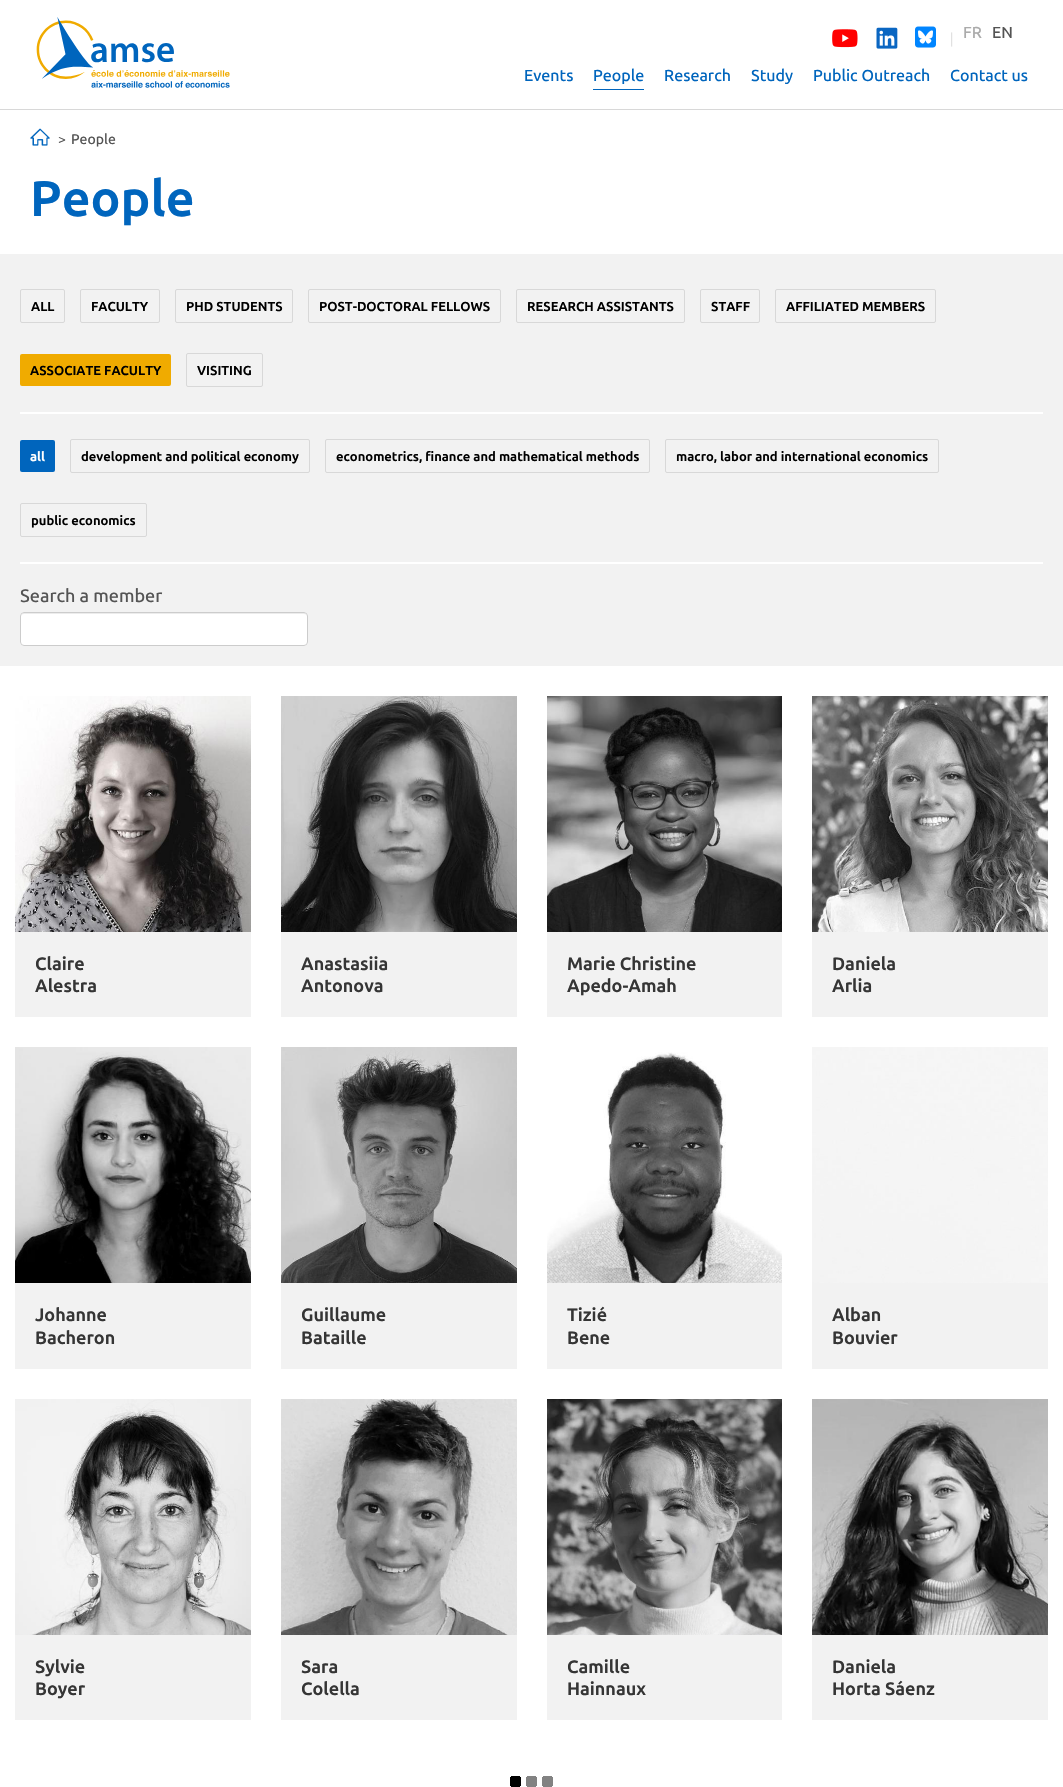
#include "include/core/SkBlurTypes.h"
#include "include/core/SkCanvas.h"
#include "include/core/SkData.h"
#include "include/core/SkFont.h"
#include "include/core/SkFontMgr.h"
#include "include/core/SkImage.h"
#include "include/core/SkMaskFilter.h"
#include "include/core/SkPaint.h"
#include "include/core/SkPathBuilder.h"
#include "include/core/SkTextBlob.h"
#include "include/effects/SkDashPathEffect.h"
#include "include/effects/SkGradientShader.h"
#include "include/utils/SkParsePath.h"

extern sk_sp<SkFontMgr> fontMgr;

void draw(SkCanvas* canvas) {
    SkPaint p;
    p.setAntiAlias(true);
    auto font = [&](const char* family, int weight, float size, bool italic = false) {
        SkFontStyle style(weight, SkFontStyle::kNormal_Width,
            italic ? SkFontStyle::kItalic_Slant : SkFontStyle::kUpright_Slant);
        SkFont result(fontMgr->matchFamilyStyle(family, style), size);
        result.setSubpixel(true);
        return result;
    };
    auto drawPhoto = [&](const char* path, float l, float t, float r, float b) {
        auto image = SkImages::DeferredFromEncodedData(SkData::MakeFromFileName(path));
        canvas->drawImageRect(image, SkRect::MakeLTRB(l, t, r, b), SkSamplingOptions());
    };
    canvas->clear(0xFFFFFFFF);
    p.setColor(0xFFD8D8D8);
    canvas->drawRect(SkRect::MakeLTRB(0, 109, 1063, 110), p);
    drawPhoto("media/1.png", 36, 17, 230, 88);
    drawPhoto("media/2.png", 832, 29, 858, 48);
    drawPhoto("media/3.png", 876, 27, 898, 49);
    drawPhoto("media/4.png", 915, 26, 936, 48);
    auto font1 = font("Source Sans Pro", 400, 14);
    p.setColor(0xFFDADADA);
    canvas->drawString("|", 950, 43, font1, p);
    auto font2 = font("Ubuntu", 500, 16);
    p.setColor(0xFFABABAB);
    canvas->drawString("FR", 963, 38, font2, p);
    p.setColor(0xFF545454);
    canvas->drawString("EN", 992, 38, font2, p);
    p.setColor(0xFF0065BD);
    canvas->drawString("Events", 524, 81, font2, p);
    canvas->drawRect(SkRect::MakeLTRB(593, 89, 644, 90), p);
    {
        const struct { const char* s; float x, y; } items[] = {
            {"People", 593, 81},
            {"Research", 664, 81},
            {"Study", 751, 81},
            {"Public Outreach", 813, 81},
            {"Contact us", 950, 81},
        };
        for (auto [s, x, y] : items) {
            canvas->drawString(s, x, y, font2, p);
        }
    }
    drawPhoto("media/5.png", 30, 128, 50, 146);
    auto font3 = font("Ubuntu", 400, 14);
    p.setColor(0xFF545454);
    canvas->drawString(">", 58, 144, font3, p);
    auto font4 = font("Ubuntu", 500, 14);
    canvas->drawString("People", 71, 144, font4, p);
    auto font5 = font("Ubuntu", 700, 50);
    p.setColor(0xFF0065BD);
    canvas->drawString("People", 30, 216, font5, p);
    p.setColor(0xFFF2F2F2);
    canvas->drawRect(SkRect::MakeLTRB(0, 254, 1063, 666), p);
    p.setStyle(SkPaint::kStroke_Style);
    p.setStrokeWidth(1);
    p.setColor(0xFFD8D8D8);
    canvas->drawRoundRect(SkRect::MakeLTRB(20.5f, 289.5f, 64.5f, 322.5f), 1.5f, 1.5f, p);
    auto font6 = font("Ubuntu", 700, 13);
    p.setStyle(SkPaint::kFill_Style);
    p.setColor(0xFF000000);
    canvas->drawString("ALL", 31, 311, font6, p);
    p.setStyle(SkPaint::kStroke_Style);
    p.setColor(0xFFD8D8D8);
    canvas->drawRoundRect(SkRect::MakeLTRB(80.5f, 289.5f, 159.5f, 322.5f), 1.5f, 1.5f, p);
    p.setStyle(SkPaint::kFill_Style);
    p.setColor(0xFF000000);
    canvas->drawString("FACULTY", 91, 311, font6, p);
    p.setStyle(SkPaint::kStroke_Style);
    p.setColor(0xFFD8D8D8);
    canvas->drawRoundRect(SkRect::MakeLTRB(175.5f, 289.5f, 292.5f, 322.5f), 1.5f, 1.5f, p);
    p.setStyle(SkPaint::kFill_Style);
    p.setColor(0xFF000000);
    canvas->drawString("PHD STUDENTS", 186, 311, font6, p);
    p.setStyle(SkPaint::kStroke_Style);
    p.setColor(0xFFD8D8D8);
    canvas->drawRoundRect(SkRect::MakeLTRB(308.5f, 289.5f, 500.5f, 322.5f), 1.5f, 1.5f, p);
    p.setStyle(SkPaint::kFill_Style);
    p.setColor(0xFF000000);
    canvas->drawString("POST-DOCTORAL FELLOWS", 319, 311, font6, p);
    p.setStyle(SkPaint::kStroke_Style);
    p.setColor(0xFFD8D8D8);
    canvas->drawRoundRect(SkRect::MakeLTRB(516.5f, 289.5f, 684.5f, 322.5f), 1.5f, 1.5f, p);
    p.setStyle(SkPaint::kFill_Style);
    p.setColor(0xFF000000);
    canvas->drawString("RESEARCH ASSISTANTS", 527, 311, font6, p);
    p.setStyle(SkPaint::kStroke_Style);
    p.setColor(0xFFD8D8D8);
    canvas->drawRoundRect(SkRect::MakeLTRB(700.5f, 289.5f, 759.5f, 322.5f), 1.5f, 1.5f, p);
    p.setStyle(SkPaint::kFill_Style);
    p.setColor(0xFF000000);
    canvas->drawString("STAFF", 711, 311, font6, p);
    p.setStyle(SkPaint::kStroke_Style);
    p.setColor(0xFFD8D8D8);
    canvas->drawRoundRect(SkRect::MakeLTRB(775.5f, 289.5f, 935.5f, 322.5f), 1.5f, 1.5f, p);
    p.setStyle(SkPaint::kFill_Style);
    p.setColor(0xFF000000);
    canvas->drawString("AFFILIATED MEMBERS", 786, 311, font6, p);
    p.setColor(0xFFF0AB00);
    canvas->drawRoundRect(SkRect::MakeLTRB(20, 354, 171, 386), 2, 2, p);
    p.setColor(0xFF000000);
    canvas->drawString("ASSOCIATE FACULTY", 30, 375, font6, p);
    p.setStyle(SkPaint::kStroke_Style);
    p.setColor(0xFFD8D8D8);
    canvas->drawRoundRect(SkRect::MakeLTRB(186.5f, 353.5f, 262.5f, 386.5f), 1.5f, 1.5f, p);
    p.setStyle(SkPaint::kFill_Style);
    p.setColor(0xFF000000);
    canvas->drawString("VISITING", 197, 375, font6, p);
    p.setColor(0xFFFFFFFF);
    canvas->drawRect(SkRect::MakeLTRB(20, 412, 1043, 414), p);
    p.setColor(0xFF0065BD);
    canvas->drawRoundRect(SkRect::MakeLTRB(20, 440, 55, 472), 2, 2, p);
    p.setColor(0xFFFFFFFF);
    canvas->drawString("all", 30, 461, font6, p);
    p.setStyle(SkPaint::kStroke_Style);
    p.setColor(0xFFD8D8D8);
    canvas->drawRoundRect(SkRect::MakeLTRB(70.5f, 439.5f, 309.5f, 472.5f), 1.5f, 1.5f, p);
    p.setStyle(SkPaint::kFill_Style);
    p.setColor(0xFF000000);
    canvas->drawString("development and political economy", 81, 461, font6, p);
    p.setStyle(SkPaint::kStroke_Style);
    p.setColor(0xFFD8D8D8);
    canvas->drawRoundRect(SkRect::MakeLTRB(325.5f, 439.5f, 649.5f, 472.5f), 1.5f, 1.5f, p);
    p.setStyle(SkPaint::kFill_Style);
    p.setColor(0xFF000000);
    canvas->drawString("econometrics, finance and mathematical methods", 336, 461, font6, p);
    p.setStyle(SkPaint::kStroke_Style);
    p.setColor(0xFFD8D8D8);
    canvas->drawRoundRect(SkRect::MakeLTRB(665.5f, 439.5f, 938.5f, 472.5f), 1.5f, 1.5f, p);
    p.setStyle(SkPaint::kFill_Style);
    p.setColor(0xFF000000);
    canvas->drawString("macro, labor and international economics", 676, 461, font6, p);
    p.setStyle(SkPaint::kStroke_Style);
    p.setColor(0xFFD8D8D8);
    canvas->drawRoundRect(SkRect::MakeLTRB(20.5f, 503.5f, 146.5f, 536.5f), 1.5f, 1.5f, p);
    p.setStyle(SkPaint::kFill_Style);
    p.setColor(0xFF000000);
    canvas->drawString("public economics", 31, 525, font6, p);
    p.setColor(0xFFFFFFFF);
    canvas->drawRect(SkRect::MakeLTRB(20, 562, 1043, 564), p);
    auto font7 = font("Ubuntu", 500, 18);
    p.setColor(0xFF545454);
    canvas->drawString("Search a member", 20, 602, font7, p);
    p.setColor(0xFFFFFFFF);
    canvas->drawRoundRect(SkRect::MakeLTRB(20, 612, 308, 646), 4, 4, p);
    p.setColor(0xFFECECEC);
    canvas->drawPath(SkPathBuilder().moveTo(24, 614).lineTo(304, 614).cubicTo(306, 614, 307, 615, 307, 617).cubicTo(307, 615, 306, 613, 304, 613).lineTo(24, 613).cubicTo(22, 613, 21, 615, 21, 617).cubicTo(21, 615, 22, 614, 24, 614).close().detach(), p);
    p.setStyle(SkPaint::kStroke_Style);
    p.setColor(0xFFCCCCCC);
    canvas->drawRoundRect(SkRect::MakeLTRB(20.5f, 612.5f, 307.5f, 645.5f), 3.5f, 3.5f, p);
    drawPhoto("media/6.png", 15, 696, 251, 932);
    p.setStyle(SkPaint::kFill_Style);
    p.setColor(0xFFF2F2F2);
    canvas->drawRect(SkRect::MakeLTRB(15, 932, 251, 1017), p);
    auto font8 = font("Ubuntu", 700, 18);
    p.setColor(0xFF353535);
    canvas->drawString("Claire", 35, 970, font8, p);
    canvas->drawString("Alestra", 35, 992, font8, p);
    drawPhoto("media/7.png", 281, 696, 517, 932);
    p.setColor(0xFFF2F2F2);
    canvas->drawRect(SkRect::MakeLTRB(281, 932, 517, 1017), p);
    p.setColor(0xFF353535);
    canvas->drawString("Anastasiia", 301, 970, font8, p);
    canvas->drawString("Antonova", 301, 992, font8, p);
    drawPhoto("media/8.png", 547, 696, 782, 932);
    p.setColor(0xFFF2F2F2);
    canvas->drawRect(SkRect::MakeLTRB(547, 932, 782, 1017), p);
    p.setColor(0xFF353535);
    canvas->drawString("Marie Christine", 567, 970, font8, p);
    canvas->drawString("Apedo-Amah", 567, 992, font8, p);
    drawPhoto("media/9.png", 812, 696, 1048, 932);
    p.setColor(0xFFF2F2F2);
    canvas->drawRect(SkRect::MakeLTRB(812, 932, 1048, 1017), p);
    p.setColor(0xFF353535);
    canvas->drawString("Daniela", 832, 970, font8, p);
    canvas->drawString("Arlia", 832, 992, font8, p);
    drawPhoto("media/10.png", 15, 1047, 251, 1283);
    p.setColor(0xFFF2F2F2);
    canvas->drawRect(SkRect::MakeLTRB(15, 1283, 251, 1369), p);
    p.setColor(0xFF353535);
    canvas->drawString("Johanne", 35, 1321, font8, p);
    canvas->drawString("Bacheron", 35, 1344, font8, p);
    drawPhoto("media/11.png", 281, 1047, 517, 1283);
    p.setColor(0xFFF2F2F2);
    canvas->drawRect(SkRect::MakeLTRB(281, 1283, 517, 1369), p);
    p.setColor(0xFF353535);
    canvas->drawString("Guillaume", 301, 1321, font8, p);
    canvas->drawString("Bataille", 301, 1344, font8, p);
    drawPhoto("media/12.png", 547, 1052, 782, 1283);
    p.setColor(0xFFF2F2F2);
    canvas->drawRect(SkRect::MakeLTRB(547, 1283, 782, 1369), p);
    p.setColor(0xFF353535);
    canvas->drawString("Tizié", 567, 1321, font8, p);
    canvas->drawString("Bene", 567, 1344, font8, p);
    drawPhoto("media/13.png", 812, 1047, 1048, 1283);
    p.setColor(0xFFF2F2F2);
    canvas->drawRect(SkRect::MakeLTRB(812, 1283, 1048, 1369), p);
    p.setColor(0xFF353535);
    canvas->drawString("Alban", 832, 1321, font8, p);
    canvas->drawString("Bouvier", 832, 1344, font8, p);
    drawPhoto("media/14.png", 15, 1399, 251, 1635);
    p.setColor(0xFFF2F2F2);
    canvas->drawRect(SkRect::MakeLTRB(15, 1635, 251, 1720), p);
    p.setColor(0xFF353535);
    canvas->drawString("Sylvie", 35, 1673, font8, p);
    canvas->drawString("Boyer", 35, 1695, font8, p);
    drawPhoto("media/15.png", 281, 1399, 517, 1635);
    p.setColor(0xFFF2F2F2);
    canvas->drawRect(SkRect::MakeLTRB(281, 1635, 517, 1720), p);
    p.setColor(0xFF353535);
    canvas->drawString("Sara", 301, 1673, font8, p);
    canvas->drawString("Colella", 301, 1695, font8, p);
    drawPhoto("media/16.png", 547, 1399, 782, 1635);
    p.setColor(0xFFF2F2F2);
    canvas->drawRect(SkRect::MakeLTRB(547, 1635, 782, 1720), p);
    p.setColor(0xFF353535);
    canvas->drawString("Camille", 567, 1673, font8, p);
    canvas->drawString("Hainnaux", 567, 1695, font8, p);
    drawPhoto("media/17.png", 812, 1399, 1048, 1635);
    p.setColor(0xFFF2F2F2);
    canvas->drawRect(SkRect::MakeLTRB(812, 1635, 1048, 1720), p);
    p.setColor(0xFF353535);
    canvas->drawString("Daniela", 832, 1673, font8, p);
    canvas->drawString("Horta Sáenz", 832, 1695, font8, p);
    drawPhoto("media/18.png", 510, 1776, 553, 1787);
}
